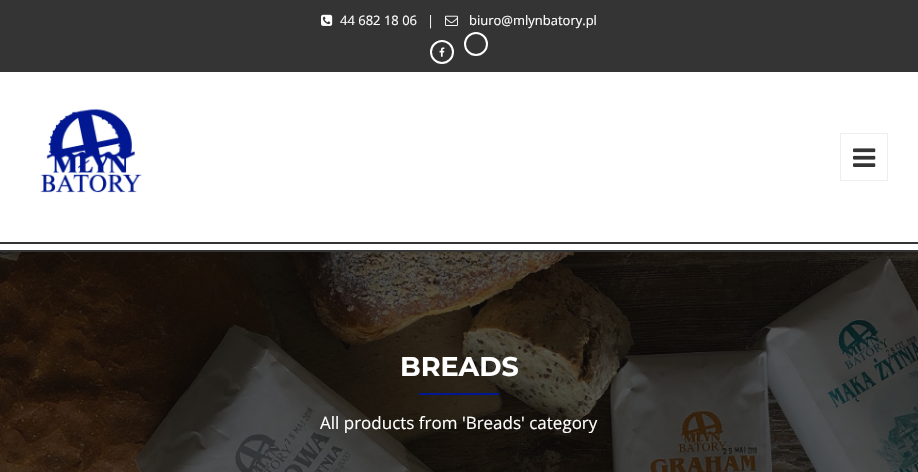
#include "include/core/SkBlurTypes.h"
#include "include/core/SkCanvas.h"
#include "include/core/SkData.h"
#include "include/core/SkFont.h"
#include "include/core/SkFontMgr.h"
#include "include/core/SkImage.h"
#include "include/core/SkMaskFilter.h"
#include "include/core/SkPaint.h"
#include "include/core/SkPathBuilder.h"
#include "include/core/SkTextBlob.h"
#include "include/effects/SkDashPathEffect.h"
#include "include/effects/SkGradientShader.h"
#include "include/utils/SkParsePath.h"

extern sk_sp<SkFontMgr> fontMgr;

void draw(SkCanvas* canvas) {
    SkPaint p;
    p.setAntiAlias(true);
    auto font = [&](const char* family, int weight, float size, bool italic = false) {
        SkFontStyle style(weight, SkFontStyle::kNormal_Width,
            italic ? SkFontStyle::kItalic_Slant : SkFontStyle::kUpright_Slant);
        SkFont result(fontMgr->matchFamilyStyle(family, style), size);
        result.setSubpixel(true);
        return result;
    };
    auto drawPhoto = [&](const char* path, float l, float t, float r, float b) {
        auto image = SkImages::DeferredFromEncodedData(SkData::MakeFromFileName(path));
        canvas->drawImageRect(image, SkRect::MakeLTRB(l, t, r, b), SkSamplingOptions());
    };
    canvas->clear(0xFFFFFFFF);
    p.setColor(0xFF343434);
    canvas->drawRect(SkRect::MakeLTRB(0, 0, 918, 72), p);
    drawPhoto("media/1.png", 321, 14, 333, 26);
    auto font1 = font("Open Sans", 400, 13);
    p.setColor(0xFFFFFFFF);
    canvas->drawString("44 682 18 06", 340, 25, font1, p);
    canvas->drawString("|", 427, 25, font1, p);
    drawPhoto("media/2.png", 445, 15, 458, 26);
    canvas->drawString("biuro@mlynbatory.pl", 469, 25, font1, p);
    p.setStyle(SkPaint::kStroke_Style);
    p.setStrokeWidth(2);
    canvas->drawCircle(442, 52, 11, p);
    drawPhoto("media/3.png", 439, 47, 445, 57);
    canvas->drawCircle(476, 44, 11, p);
    drawPhoto("media/4.png", 40, 109, 142, 193);
    p.setStrokeWidth(1);
    p.setColor(0xFFEEEEEE);
    canvas->drawRect(SkRect::MakeLTRB(840.5f, 133.5f, 887.5f, 180.5f), p);
    drawPhoto("media/5.png", 853, 148, 876, 167);
    drawPhoto("media/6.png", 0, 252, 918, 472);
    p.setStrokeWidth(10);
    p.setColor(0xFF343434);
    canvas->drawRect(SkRect::MakeLTRB(-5, 247, 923, 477), p);
    p.setStrokeWidth(8);
    p.setColor(0xFFFFFFFF);
    canvas->drawRect(SkRect::MakeLTRB(-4, 246, 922, 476), p);
    p.setStrokeWidth(2);
    p.setColor(0xFF343434);
    canvas->drawRect(SkRect::MakeLTRB(-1, 243, 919, 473), p);
    auto font2 = font("Montserrat", 700, 27);
    p.setStyle(SkPaint::kFill_Style);
    p.setColor(0xFFFFFFFF);
    canvas->drawString("BREADS", 400, 376, font2, p);
    p.setColor(0xFF021892);
    canvas->drawRect(SkRect::MakeLTRB(419, 393, 499, 395), p);
    auto font3 = font("Open Sans", 400, 17);
    p.setColor(0xFFFFFFFF);
    canvas->drawString("All products from 'Breads' category", 320, 429, font3, p);
}
